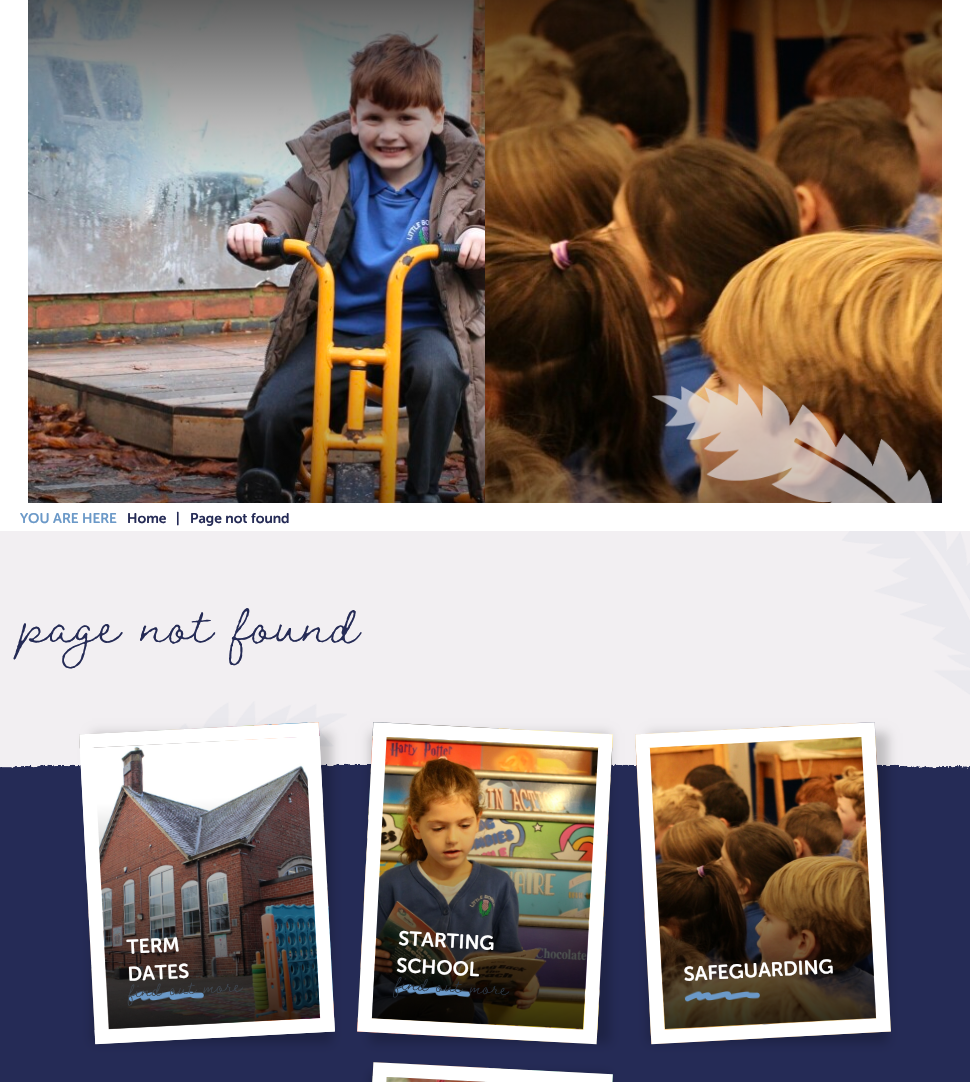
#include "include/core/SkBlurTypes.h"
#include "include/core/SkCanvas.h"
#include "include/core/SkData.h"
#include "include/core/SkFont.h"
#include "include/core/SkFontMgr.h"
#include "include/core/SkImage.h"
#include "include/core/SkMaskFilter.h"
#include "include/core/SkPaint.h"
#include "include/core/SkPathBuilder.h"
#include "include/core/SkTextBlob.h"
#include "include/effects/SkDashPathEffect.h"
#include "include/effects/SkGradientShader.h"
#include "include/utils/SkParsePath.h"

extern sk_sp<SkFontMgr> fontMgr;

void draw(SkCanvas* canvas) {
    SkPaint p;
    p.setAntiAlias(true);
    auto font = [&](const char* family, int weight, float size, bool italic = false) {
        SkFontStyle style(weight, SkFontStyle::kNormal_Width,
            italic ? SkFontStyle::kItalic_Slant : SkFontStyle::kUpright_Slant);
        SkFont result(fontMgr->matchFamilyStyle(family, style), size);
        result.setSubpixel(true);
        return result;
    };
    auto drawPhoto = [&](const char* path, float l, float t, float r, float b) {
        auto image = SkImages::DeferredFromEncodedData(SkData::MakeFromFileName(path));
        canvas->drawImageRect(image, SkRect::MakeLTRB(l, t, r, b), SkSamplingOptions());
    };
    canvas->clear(0xFFFFFFFF);
    drawPhoto("media/1.png", 28, 0, 485, 503);
    drawPhoto("media/2.png", 485, 0, 942, 503);
    p.setColor(0xFFF2EFF2);
    canvas->drawRect(SkRect::MakeLTRB(0, 531, 970, 769), p);
    drawPhoto("media/3.png", 651, 383, 970, 695);
    p.setColor(0xFFFFFFFF);
    canvas->drawRect(SkRect::MakeLTRB(805, 503, 945, 531), p);
    auto font1 = font("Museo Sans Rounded", 600, 14);
    p.setColor(0xFF6B99C8);
    canvas->drawString("YOU ARE HERE", 20, 523, font1, p);
    p.setColor(0xFF252B56);
    {
        const struct { const char* s; float x, y; } items[] = {
            {"Home", 127, 523},
            {"|", 176, 523},
            {"Page not found", 190, 523},
        };
        for (auto [s, x, y] : items) {
            canvas->drawString(s, x, y, font1, p);
        }
    }
    auto font2 = font("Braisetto", 400, 87);
    canvas->drawString("page not found", 20, 642, font2, p);
    drawPhoto("media/4.png", 177, 701, 347, 747);
    drawPhoto("media/5.png", 0, 763, 970, 773);
    canvas->drawRect(SkRect::MakeLTRB(0, 773, 970, 1082), p);
    p.setColor(0x33000000);
    p.setMaskFilter(SkMaskFilter::MakeBlur(kNormal_SkBlurStyle, 5));
    canvas->drawRect(SkRect::MakeLTRB(92, 733, 332, 1043), p);
    p.setMaskFilter(nullptr);
    drawPhoto("media/6.png", 79, 722, 335, 1044);
    p.setStyle(SkPaint::kStroke_Style);
    p.setStrokeWidth(14);
    p.setColor(0xFFFFFFFF);
    canvas->drawPath(SkPathBuilder().moveTo(86.5f, 741).lineTo(312, 729.5f).lineTo(327.5f, 1025).lineTo(102, 1037).close().detach(), p);
    p.setStyle(SkPaint::kFill_Style);
    {
        const SkColor colors[] = {0xCC000000, 0x00000000};
        const float stops[] = {0, 0.8f};
        const SkPoint ends[] = {{214, 1024}, {200, 742}};
        p.setShader(SkGradientShader::MakeLinear(ends, colors, stops, 2, SkTileMode::kClamp));
        p.setAlpha(255);
    }
    canvas->drawPath(SkPathBuilder().moveTo(94, 748).lineTo(305, 737).lineTo(320, 1018).lineTo(109, 1029).close().detach(), p);
    auto font3 = font("Museo Sans Rounded", 600, 20);
    p.setShader(nullptr);
    p.setColor(0xFFFFFFFF);
    canvas->save();
    canvas->rotate(-3, 127, 954);
    canvas->drawString("TERM", 127, 954, font3, p);
    canvas->restore();
    canvas->save();
    canvas->rotate(-3, 128, 981);
    canvas->drawString("DATES", 128, 981, font3, p);
    canvas->restore();
    drawPhoto("media/7.png", 128, 990, 204, 1003);
    auto font4 = font("Braisetto", 400, 32);
    p.setColor(0xFF3D454E);
    canvas->save();
    canvas->rotate(-3, 129, 997);
    canvas->drawString("find out more", 129, 997, font4, p);
    canvas->restore();
    p.setColor(0x33000000);
    p.setMaskFilter(SkMaskFilter::MakeBlur(kNormal_SkBlurStyle, 5));
    canvas->drawRect(SkRect::MakeLTRB(370, 733, 610, 1043), p);
    p.setMaskFilter(nullptr);
    drawPhoto("media/8.png", 357, 722, 613, 1044);
    p.setStyle(SkPaint::kStroke_Style);
    p.setColor(0xFFFFFFFF);
    canvas->drawPath(SkPathBuilder().moveTo(380, 729.5f).lineTo(605.5f, 741).lineTo(590, 1037).lineTo(364.5f, 1025).close().detach(), p);
    p.setStyle(SkPaint::kFill_Style);
    {
        const SkColor colors[] = {0xCC000000, 0x00000000};
        const float stops[] = {0, 0.8f};
        const SkPoint ends[] = {{478, 1024}, {492, 742}};
        p.setShader(SkGradientShader::MakeLinear(ends, colors, stops, 2, SkTileMode::kClamp));
        p.setAlpha(255);
    }
    canvas->drawPath(SkPathBuilder().moveTo(387, 737).lineTo(598, 748).lineTo(583, 1029).lineTo(372, 1018).close().detach(), p);
    p.setShader(nullptr);
    p.setColor(0xFFFFFFFF);
    canvas->save();
    canvas->rotate(3, 398, 945);
    canvas->drawString("STARTING", 398, 945, font3, p);
    canvas->restore();
    canvas->save();
    canvas->rotate(3, 396, 972);
    canvas->drawString("SCHOOL", 396, 972, font3, p);
    canvas->restore();
    drawPhoto("media/9.png", 395, 984, 471, 998);
    p.setColor(0xFF29333F);
    canvas->save();
    canvas->rotate(3, 395, 989);
    canvas->drawString("find out more", 395, 989, font4, p);
    canvas->restore();
    p.setColor(0x33000000);
    p.setMaskFilter(SkMaskFilter::MakeBlur(kNormal_SkBlurStyle, 5));
    canvas->drawRect(SkRect::MakeLTRB(648, 733, 888, 1043), p);
    p.setMaskFilter(nullptr);
    drawPhoto("media/10.png", 635, 722, 891, 1044);
    p.setStyle(SkPaint::kStroke_Style);
    p.setColor(0xFFFFFFFF);
    canvas->drawPath(SkPathBuilder().moveTo(642.5f, 741).lineTo(868, 729.5f).lineTo(883.5f, 1025).lineTo(658, 1037).close().detach(), p);
    p.setStyle(SkPaint::kFill_Style);
    {
        const SkColor colors[] = {0xCC000000, 0x00000000};
        const float stops[] = {0, 0.8f};
        const SkPoint ends[] = {{770, 1024}, {756, 742}};
        p.setShader(SkGradientShader::MakeLinear(ends, colors, stops, 2, SkTileMode::kClamp));
        p.setAlpha(255);
    }
    canvas->drawPath(SkPathBuilder().moveTo(650, 748).lineTo(861, 737).lineTo(876, 1018).lineTo(665, 1029).close().detach(), p);
    p.setShader(nullptr);
    p.setColor(0xFFFFFFFF);
    canvas->save();
    canvas->rotate(-3, 684, 981);
    canvas->drawString("SAFEGUARDING", 684, 981, font3, p);
    canvas->restore();
    drawPhoto("media/11.png", 684, 990, 760, 1003);
    p.setColor(0x33000000);
    p.setMaskFilter(SkMaskFilter::MakeBlur(kNormal_SkBlurStyle, 5));
    canvas->drawRect(SkRect::MakeLTRB(370, 1073, 610, 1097), p);
    p.setMaskFilter(nullptr);
    drawPhoto("media/12.png", 372, 1062, 613, 1082);
    p.setStyle(SkPaint::kStroke_Style);
    p.setColor(0xFFFFFFFF);
    canvas->drawPath(SkPathBuilder().moveTo(380, 1069.5f).lineTo(605.5f, 1081).lineTo(590, 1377).lineTo(364.5f, 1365).close().detach(), p);
}
